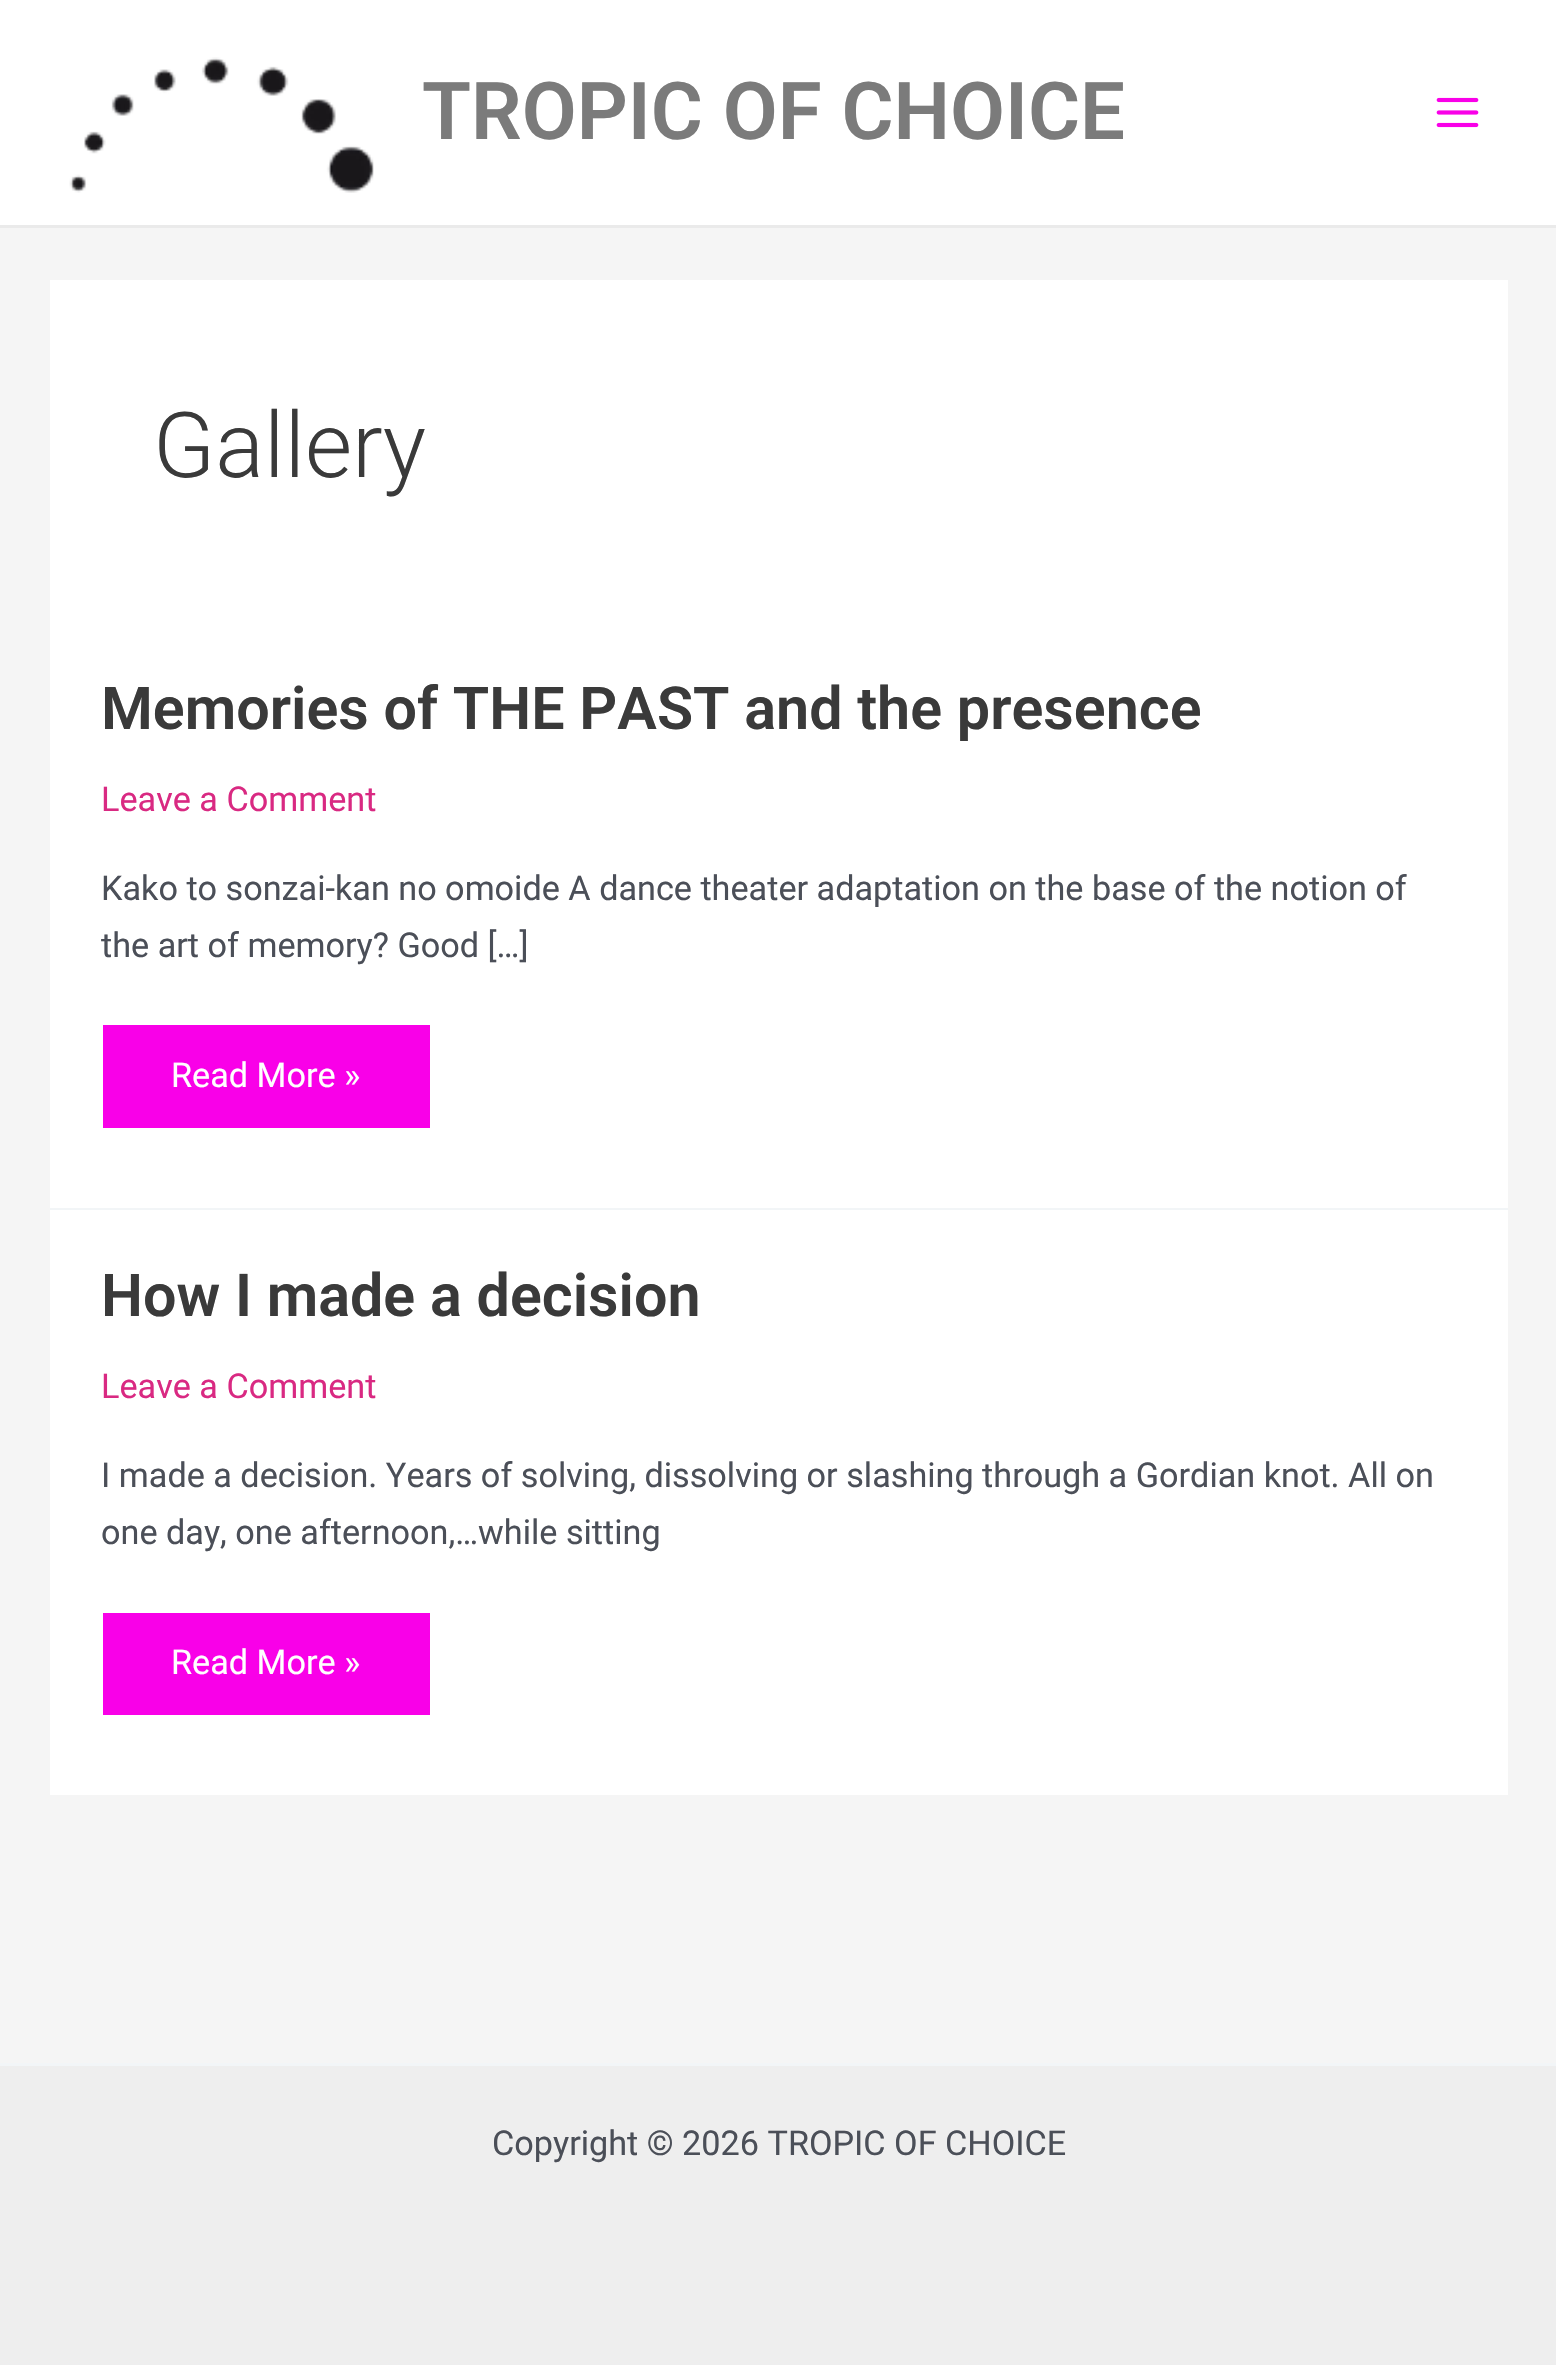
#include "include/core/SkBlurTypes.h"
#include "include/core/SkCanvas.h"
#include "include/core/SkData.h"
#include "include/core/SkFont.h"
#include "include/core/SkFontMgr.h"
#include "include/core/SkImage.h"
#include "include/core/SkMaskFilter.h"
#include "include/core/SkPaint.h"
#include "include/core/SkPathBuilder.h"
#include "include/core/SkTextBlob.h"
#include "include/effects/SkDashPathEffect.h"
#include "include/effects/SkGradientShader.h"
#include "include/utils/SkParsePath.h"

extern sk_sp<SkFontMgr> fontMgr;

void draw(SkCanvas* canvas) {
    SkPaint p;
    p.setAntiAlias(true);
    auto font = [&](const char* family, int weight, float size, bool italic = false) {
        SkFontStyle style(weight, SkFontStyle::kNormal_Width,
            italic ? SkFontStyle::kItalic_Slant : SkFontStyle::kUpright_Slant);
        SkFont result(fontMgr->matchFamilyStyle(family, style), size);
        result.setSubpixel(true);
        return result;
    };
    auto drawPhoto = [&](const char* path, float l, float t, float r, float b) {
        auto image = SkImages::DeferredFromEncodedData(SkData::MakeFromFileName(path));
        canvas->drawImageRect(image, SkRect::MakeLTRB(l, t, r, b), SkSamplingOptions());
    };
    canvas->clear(0xFFF5F5F5);
    p.setColor(0xFFFFFFFF);
    canvas->drawRect(SkRect::MakeLTRB(0, 0, 1556, 225), p);
    p.setColor(0xFFEAEAEA);
    canvas->drawRect(SkRect::MakeLTRB(0, 225, 1556, 228), p);
    drawPhoto("media/1.png", 69, 57, 374, 193);
    auto font1 = font("Roboto", 600, 79.75f);
    p.setColor(0xFF7B7B7B);
    canvas->drawString("TROPIC OF CHOICE", 422, 139, font1, p);
    drawPhoto("media/2.png", 1436, 97, 1479, 128);
    p.setColor(0xFFFFFFFF);
    canvas->drawRect(SkRect::MakeLTRB(50, 280, 1508, 1208), p);
    auto font2 = font("Roboto", 300, 91);
    p.setColor(0xFF3A3A3A);
    canvas->drawString("Gallery", 153, 477, font2, p);
    p.setColor(0xFFF2F5F7);
    canvas->drawRect(SkRect::MakeLTRB(50, 1208, 1508, 1210), p);
    auto font3 = font("Roboto", 600, 59.25f);
    p.setColor(0xFF3A3A3A);
    canvas->drawString("Memories of THE PAST and the presence", 101, 729, font3, p);
    auto font4 = font("Roboto", 400, 34.2f);
    p.setColor(0xFFD92982);
    canvas->drawString("Leave a Comment", 101, 811, font4, p);
    p.setColor(0xFF4B4F58);
    canvas->drawString("Kako to sonzai-kan no omoide A dance theater adaptation on the base of the notion of", 101, 900, font4, p);
    canvas->drawString("the art of memory? Good […]", 101, 957, font4, p);
    p.setColor(0xFFF900E8);
    canvas->drawRect(SkRect::MakeLTRB(103, 1025, 430, 1128), p);
    p.setColor(0xFFFFFFFF);
    canvas->drawString("Read More »", 171, 1087, font4, p);
    canvas->drawRect(SkRect::MakeLTRB(50, 1210, 1508, 1795), p);
    p.setColor(0xFF3A3A3A);
    canvas->drawString("How I made a decision", 101, 1316, font3, p);
    p.setColor(0xFFD92982);
    canvas->drawString("Leave a Comment", 101, 1398, font4, p);
    p.setColor(0xFF4B4F58);
    canvas->drawString("I made a decision. Years of solving, dissolving or slashing through a Gordian knot. All on", 101, 1487, font4, p);
    canvas->drawString("one day, one afternoon,…while sitting", 101, 1544, font4, p);
    p.setColor(0xFFF900E8);
    canvas->drawRect(SkRect::MakeLTRB(103, 1613, 430, 1715), p);
    p.setColor(0xFFFFFFFF);
    canvas->drawString("Read More »", 171, 1674, font4, p);
    p.setColor(0xFFEEEEEE);
    canvas->drawRect(SkRect::MakeLTRB(0, 2066, 1556, 2365), p);
    p.setColor(0xFFF2F5F7);
    canvas->drawRect(SkRect::MakeLTRB(0, 2063, 1556, 2066), p);
    p.setColor(0xFF4B4F58);
    canvas->drawString("Copyright © 2026 TROPIC OF CHOICE", 492, 2155, font4, p);
}
